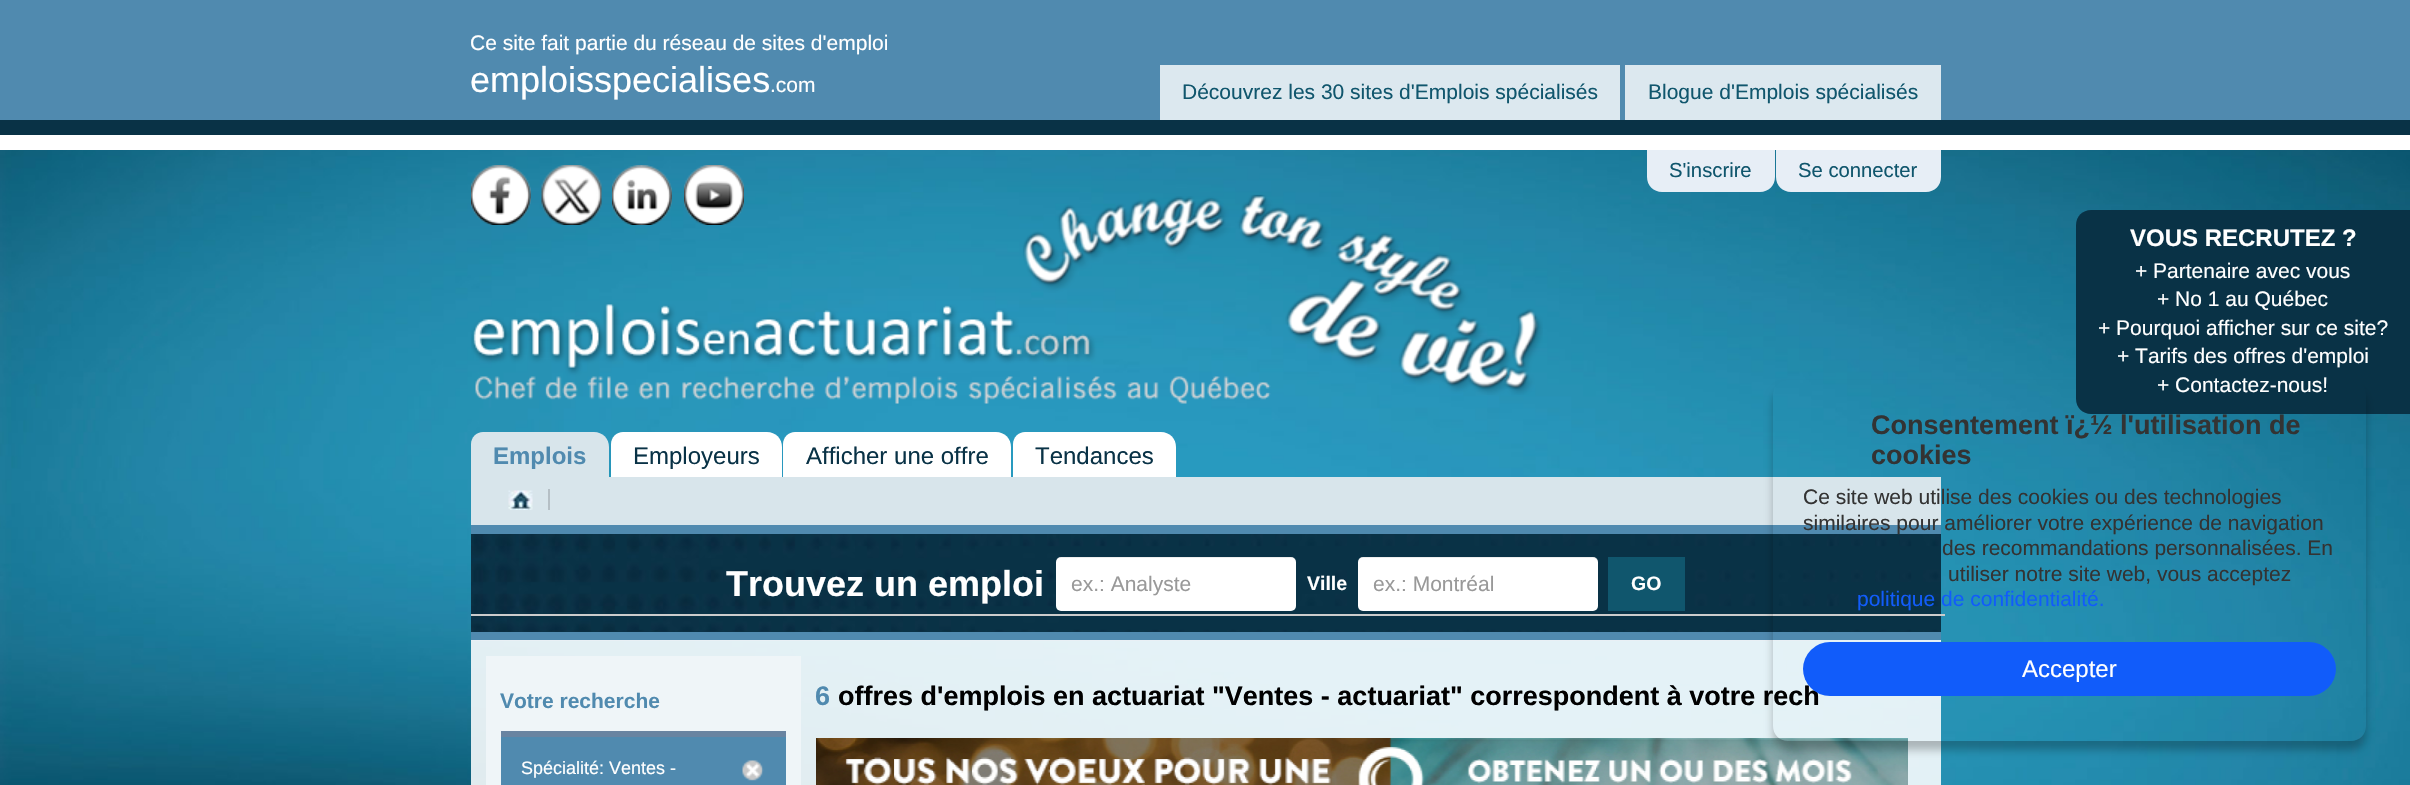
#include "include/core/SkBlurTypes.h"
#include "include/core/SkCanvas.h"
#include "include/core/SkData.h"
#include "include/core/SkFont.h"
#include "include/core/SkFontMgr.h"
#include "include/core/SkImage.h"
#include "include/core/SkMaskFilter.h"
#include "include/core/SkPaint.h"
#include "include/core/SkPathBuilder.h"
#include "include/core/SkTextBlob.h"
#include "include/effects/SkDashPathEffect.h"
#include "include/effects/SkGradientShader.h"
#include "include/utils/SkParsePath.h"

extern sk_sp<SkFontMgr> fontMgr;

void draw(SkCanvas* canvas) {
    SkPaint p;
    p.setAntiAlias(true);
    auto font = [&](const char* family, int weight, float size, bool italic = false) {
        SkFontStyle style(weight, SkFontStyle::kNormal_Width,
            italic ? SkFontStyle::kItalic_Slant : SkFontStyle::kUpright_Slant);
        SkFont result(fontMgr->matchFamilyStyle(family, style), size);
        result.setSubpixel(true);
        return result;
    };
    auto drawPhoto = [&](const char* path, float l, float t, float r, float b) {
        auto image = SkImages::DeferredFromEncodedData(SkData::MakeFromFileName(path));
        canvas->drawImageRect(image, SkRect::MakeLTRB(l, t, r, b), SkSamplingOptions());
    };
    canvas->clear(0xFFFFFFFF);
    drawPhoto("media/1.png", 0, 150, 2410, 785);
    p.setColor(0xFF508AAF);
    canvas->drawRect(SkRect::MakeLTRB(0, 0, 2410, 120), p);
    p.setColor(0xFF093246);
    canvas->drawRect(SkRect::MakeLTRB(0, 120, 2410, 135), p);
    auto font1 = font("Liberation Sans", 400, 21);
    p.setColor(0xFFFFFFFF);
    canvas->drawString("Ce site fait partie du réseau de sites d'emploi", 470, 50, font1, p);
    auto font2 = font("Liberation Sans", 400, 36);
    canvas->drawString("emploisspecialises", 470, 92, font2, p);
    canvas->drawString(".com", 770, 92, font1, p);
    p.setColor(0xFFDCE8EF);
    canvas->drawRect(SkRect::MakeLTRB(1160, 65, 1620, 120), p);
    p.setColor(0xFF10566D);
    canvas->drawString("Découvrez les 30 sites d'Emplois spécialisés", 1182, 99, font1, p);
    p.setColor(0xFFDCE8EF);
    canvas->drawRect(SkRect::MakeLTRB(1625, 65, 1941, 120), p);
    p.setColor(0xFF10566D);
    canvas->drawString("Blogue d'Emplois spécialisés", 1648, 99, font1, p);
    drawPhoto("media/6.png", 471, 194, 1543, 395);
    drawPhoto("media/2.png", 471, 165, 531, 225);
    drawPhoto("media/3.png", 541, 165, 602, 225);
    drawPhoto("media/4.png", 612, 165, 672, 225);
    drawPhoto("media/5.png", 684, 165, 744, 225);
    p.setColor(0xFFE7EEF6);
    canvas->drawPath(SkPathBuilder().moveTo(1647, 150).lineTo(1775, 150).lineTo(1775, 177).cubicTo(1775, 185.5f, 1768.5f, 192, 1760, 192).lineTo(1662, 192).cubicTo(1653.5f, 192, 1647, 185.5f, 1647, 177).close().detach(), p);
    auto font3 = font("Liberation Sans", 400, 20.25f);
    p.setColor(0xFF10566D);
    canvas->drawString("S'inscrire", 1669, 177, font3, p);
    p.setColor(0xFFE7EEF6);
    canvas->drawPath(SkPathBuilder().moveTo(1776, 150).lineTo(1941, 150).lineTo(1941, 177).cubicTo(1941, 185.5f, 1934.5f, 192, 1926, 192).lineTo(1791, 192).cubicTo(1782.5f, 192, 1776, 185.5f, 1776, 177).close().detach(), p);
    p.setColor(0xFF10566D);
    canvas->drawString("Se connecter", 1798, 177, font3, p);
    drawPhoto("media/7.png", 475, 376, 1271, 404);
    p.setColor(0xFF093246);
    canvas->drawPath(SkPathBuilder().moveTo(2091, 210).lineTo(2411, 210).lineTo(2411, 414).lineTo(2091, 414).cubicTo(2082.5f, 414, 2076, 407.5f, 2076, 399).lineTo(2076, 225).cubicTo(2076, 216.5f, 2082.5f, 210, 2091, 210).close().detach(), p);
    auto font4 = font("Liberation Sans", 700, 24);
    p.setColor(0xFFFFFFFF);
    canvas->drawString("VOUS RECRUTEZ ?", 2130, 246, font4, p);
    {
        const struct { const char* s; float x, y; } items[] = {
            {"+ Partenaire avec vous", 2135, 278},
            {"+ No 1 au Québec", 2157, 306},
            {"+ Pourquoi afficher sur ce site?", 2098, 335},
            {"+ Tarifs des offres d'emploi", 2117, 363},
            {"+ Contactez-nous!", 2157, 392},
        };
        for (auto [s, x, y] : items) {
            canvas->drawString(s, x, y, font1, p);
        }
    }
    p.setColor(0xFFD8E5EB);
    canvas->drawPath(SkPathBuilder().moveTo(483, 432).lineTo(594, 432).cubicTo(602.5f, 432, 609, 438.5f, 609, 447).lineTo(609, 477).lineTo(471, 477).lineTo(471, 444).cubicTo(471, 437.5f, 476.5f, 432, 483, 432).close().detach(), p);
    p.setColor(0xFF508AAF);
    canvas->drawString("Emplois", 493, 464, font4, p);
    p.setColor(0xFFFFFFFF);
    canvas->drawPath(SkPathBuilder().moveTo(623, 432).lineTo(767, 432).cubicTo(775.5f, 432, 782, 438.5f, 782, 447).lineTo(782, 477).lineTo(611, 477).lineTo(611, 444).cubicTo(611, 437.5f, 616.5f, 432, 623, 432).close().detach(), p);
    auto font5 = font("Liberation Sans", 400, 24);
    p.setColor(0xFF093246);
    canvas->drawString("Employeurs", 633, 464, font5, p);
    p.setColor(0xFFFFFFFF);
    canvas->drawPath(SkPathBuilder().moveTo(795, 432).lineTo(996, 432).cubicTo(1004.5f, 432, 1011, 438.5f, 1011, 447).lineTo(1011, 477).lineTo(783, 477).lineTo(783, 444).cubicTo(783, 437.5f, 788.5f, 432, 795, 432).close().detach(), p);
    p.setColor(0xFF093246);
    canvas->drawString("Afficher une offre", 806, 464, font5, p);
    p.setColor(0xFFFFFFFF);
    canvas->drawPath(SkPathBuilder().moveTo(1025, 432).lineTo(1161, 432).cubicTo(1169.5f, 432, 1176, 438.5f, 1176, 447).lineTo(1176, 477).lineTo(1013, 477).lineTo(1013, 444).cubicTo(1013, 437.5f, 1018.5f, 432, 1025, 432).close().detach(), p);
    p.setColor(0xFF093246);
    canvas->drawString("Tendances", 1035, 464, font5, p);
    p.setColor(0xFFD8E5EB);
    canvas->drawRect(SkRect::MakeLTRB(471, 477, 1941, 525), p);
    drawPhoto("media/8.png", 508, 490, 533, 510);
    p.setColor(0xFFB5BFC5);
    canvas->drawRect(SkRect::MakeLTRB(548, 489, 550, 510), p);
    drawPhoto("media/9.png", 471, 534, 1941, 632);
    p.setColor(0xFF508AAF);
    canvas->drawRect(SkRect::MakeLTRB(471, 525, 1941, 534), p);
    canvas->drawRect(SkRect::MakeLTRB(471, 632, 1941, 641), p);
    auto font6 = font("Liberation Sans", 700, 36);
    p.setColor(0xFFFFFFFF);
    canvas->drawString("Trouvez un emploi", 726, 596, font6, p);
    canvas->drawRoundRect(SkRect::MakeLTRB(1056, 557, 1296, 611), 5, 5, p);
    p.setColor(0x12000000);
    canvas->drawPath(SkPathBuilder().moveTo(1060, 558).lineTo(1292, 558).cubicTo(1294, 558, 1296, 560, 1296, 562).cubicTo(1296, 559, 1294, 557, 1291, 557).lineTo(1061, 557).cubicTo(1058, 557, 1056, 559, 1056, 562).cubicTo(1056, 560, 1058, 558, 1060, 558).close().detach(), p);
    p.setColor(0xFF999999);
    canvas->drawString("ex.: Analyste", 1071, 591, font1, p);
    auto font7 = font("Liberation Sans", 700, 19.5f);
    p.setColor(0xFFFFFFFF);
    canvas->drawString("Ville", 1307, 590, font7, p);
    canvas->drawRoundRect(SkRect::MakeLTRB(1358, 557, 1598, 611), 5, 5, p);
    p.setColor(0x12000000);
    canvas->drawPath(SkPathBuilder().moveTo(1362, 558).lineTo(1593, 558).cubicTo(1595, 558, 1598, 560, 1598, 562).cubicTo(1598, 559, 1596, 557, 1593, 557).lineTo(1363, 557).cubicTo(1360, 557, 1358, 559, 1358, 562).cubicTo(1358, 560, 1360, 558, 1362, 558).close().detach(), p);
    p.setColor(0xFF999999);
    canvas->drawString("ex.: Montréal", 1373, 591, font1, p);
    p.setColor(0xFF10566D);
    canvas->drawRect(SkRect::MakeLTRB(1608, 557, 1685, 611), p);
    p.setColor(0xFFFFFFFF);
    canvas->drawString("GO", 1631, 590, font7, p);
    {
        const struct { float l, t, r, b; SkColor color; } items[] = {
            {471, 614, 1945, 616, 0xFFCCCCCC},
            {471, 640, 1941, 785, 0xDEFFFFFF},
            {486, 656, 801, 785, 0xFFEFF5F8},
        };
        for (auto [l, t, r, b, color] : items) {
            p.setColor(color);
            canvas->drawRect(SkRect::MakeLTRB(l, t, r, b), p);
        }
    }
    auto font8 = font("Liberation Sans", 700, 21);
    p.setColor(0xFF508AAF);
    canvas->drawString("Votre recherche", 500, 708, font8, p);
    canvas->drawRect(SkRect::MakeLTRB(501, 737, 786, 785), p);
    p.setColor(0xFF6984A1);
    canvas->drawRect(SkRect::MakeLTRB(501, 731, 786, 737), p);
    drawPhoto("media/10.png", 742, 760, 764, 781);
    auto font9 = font("Liberation Sans", 400, 18);
    p.setColor(0xFFFFFFFF);
    canvas->drawString("Spécialité: Ventes -", 521, 774, font9, p);
    auto font10 = font("Liberation Sans", 700, 27);
    p.setColor(0xFF508AAF);
    canvas->drawString("6", 815, 705, font10, p);
    p.setColor(0xFF000000);
    canvas->drawString("offres d'emplois en actuariat \"Ventes - actuariat\" correspondent à votre rech", 838, 705, font10, p);
    drawPhoto("media/11.png", 816, 738, 1908, 785);
    canvas->save();
    canvas->clipPath(SkPathBuilder(SkPathFillType::kEvenOdd).moveTo(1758, 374).lineTo(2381, 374).lineTo(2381, 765).lineTo(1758, 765).close().moveTo(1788, 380).lineTo(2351, 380).cubicTo(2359.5f, 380, 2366, 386.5f, 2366, 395).lineTo(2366, 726).cubicTo(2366, 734.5f, 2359.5f, 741, 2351, 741).lineTo(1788, 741).cubicTo(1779.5f, 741, 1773, 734.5f, 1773, 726).lineTo(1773, 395).cubicTo(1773, 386.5f, 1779.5f, 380, 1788, 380).close().detach(), true);
    p.setColor(0x40000000);
    p.setMaskFilter(SkMaskFilter::MakeBlur(kNormal_SkBlurStyle, 4.5f));
    canvas->drawRoundRect(SkRect::MakeLTRB(1773, 389, 2366, 750), 15, 15, p);
    p.setMaskFilter(nullptr);
    canvas->restore();
    p.setColor(0xFF333333);
    canvas->drawString("Consentement ï¿½ l'utilisation de", 1871, 434, font10, p);
    canvas->drawString("cookies", 1871, 464, font10, p);
    {
        const struct { const char* s; float x, y; } items[] = {
            {"Ce site web utilise des cookies ou des technologies", 1803, 504},
            {"similaires pour améliorer votre expérience de navigation", 1803, 530},
            {"des recommandations personnalisées. En", 1942, 555},
            {"utiliser notre site web, vous acceptez", 1948, 581},
        };
        for (auto [s, x, y] : items) {
            canvas->drawString(s, x, y, font1, p);
        }
    }
    p.setColor(0xFF115CFA);
    canvas->drawString("politique de confidentialité.", 1857, 606, font1, p);
    canvas->drawRoundRect(SkRect::MakeLTRB(1803, 642, 2336, 696), 27, 27, p);
    p.setColor(0xFFFFFFFF);
    canvas->drawString("Accepter", 2022, 677, font5, p);
}
